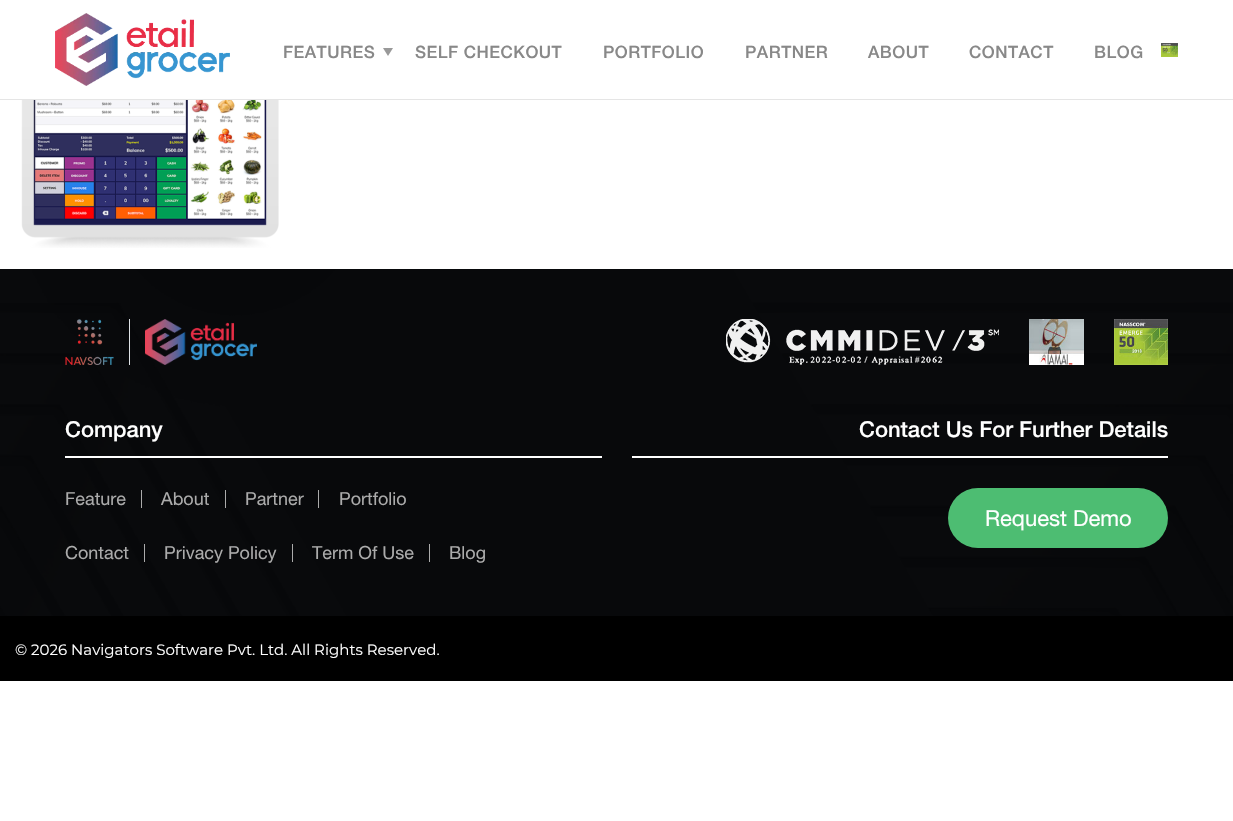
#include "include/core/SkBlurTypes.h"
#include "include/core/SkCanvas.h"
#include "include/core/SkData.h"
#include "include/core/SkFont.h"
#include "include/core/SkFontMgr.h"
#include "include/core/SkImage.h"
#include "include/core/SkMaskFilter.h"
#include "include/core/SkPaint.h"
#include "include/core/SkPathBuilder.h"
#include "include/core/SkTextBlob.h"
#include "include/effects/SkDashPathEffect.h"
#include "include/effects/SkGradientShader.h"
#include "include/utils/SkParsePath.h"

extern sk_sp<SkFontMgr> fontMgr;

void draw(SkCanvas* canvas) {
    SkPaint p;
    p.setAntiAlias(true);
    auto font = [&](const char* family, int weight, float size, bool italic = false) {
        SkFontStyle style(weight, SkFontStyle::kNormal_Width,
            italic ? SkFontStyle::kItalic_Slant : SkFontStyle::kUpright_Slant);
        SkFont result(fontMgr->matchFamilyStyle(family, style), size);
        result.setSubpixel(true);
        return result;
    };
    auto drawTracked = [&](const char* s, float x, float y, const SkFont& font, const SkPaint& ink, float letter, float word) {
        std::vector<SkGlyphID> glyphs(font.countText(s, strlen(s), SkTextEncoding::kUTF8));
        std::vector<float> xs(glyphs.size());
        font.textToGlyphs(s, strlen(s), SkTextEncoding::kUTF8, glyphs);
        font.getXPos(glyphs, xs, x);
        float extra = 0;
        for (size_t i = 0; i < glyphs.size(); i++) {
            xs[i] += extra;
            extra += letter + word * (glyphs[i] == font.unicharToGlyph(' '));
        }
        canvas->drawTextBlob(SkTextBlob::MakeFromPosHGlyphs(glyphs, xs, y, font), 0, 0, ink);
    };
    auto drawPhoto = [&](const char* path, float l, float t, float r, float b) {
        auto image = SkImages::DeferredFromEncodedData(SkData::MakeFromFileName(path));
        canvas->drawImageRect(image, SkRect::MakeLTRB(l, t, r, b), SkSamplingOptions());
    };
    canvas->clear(0xFFFFFFFF);
    p.setColor(0xFFE5E5E5);
    canvas->drawRect(SkRect::MakeLTRB(0, 99, 1233, 100), p);
    drawPhoto("media/1.png", 55, 13, 230, 86);
    auto font1 = font("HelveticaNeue", 500, 17);
    p.setColor(0xFF888888);
    drawTracked("FEATURES", 283, 58, font1, p, 0.5f, 0);
    p.setColor(0xFF999999);
    canvas->drawPath(SkPathBuilder().moveTo(383, 48).lineTo(393, 48).lineTo(388, 56).close().detach(), p);
    p.setColor(0xFF888888);
    {
        const struct { const char* s; float x, y; } items[] = {
            {"SELF CHECKOUT", 415, 58},
            {"PORTFOLIO", 603, 58},
            {"PARTNER", 745, 58},
            {"ABOUT", 868, 58},
            {"CONTACT", 969, 58},
            {"BLOG", 1094, 58},
        };
        for (auto [s, x, y] : items) {
            drawTracked(s, x, y, font1, p, 0.5f, 0);
        }
    }
    drawPhoto("media/2.png", 1161, 43, 1178, 57);
    drawPhoto("media/3.png", 21, 100, 279, 248);
    drawPhoto("media/4.png", 0, 269, 1233, 616);
    drawPhoto("media/5.png", 65, 319, 114, 365);
    p.setColor(0xFFDEE2E6);
    canvas->drawRect(SkRect::MakeLTRB(129, 319, 130, 365), p);
    drawPhoto("media/6.png", 145, 319, 257, 365);
    drawPhoto("media/7.png", 726, 319, 999, 365);
    drawPhoto("media/8.png", 1029, 319, 1084, 365);
    drawPhoto("media/9.png", 1114, 319, 1168, 365);
    p.setColor(0xFFFFFFFF);
    canvas->drawRect(SkRect::MakeLTRB(65, 456, 602, 458), p);
    auto font2 = font("HelveticaNeue", 500, 22);
    canvas->drawString("Company", 65, 437, font2, p);
    p.setColor(0xFFABABAB);
    canvas->drawRect(SkRect::MakeLTRB(141, 490, 142, 508), p);
    auto font3 = font("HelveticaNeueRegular", 400, 18);
    canvas->drawString("Feature", 65, 505, font3, p);
    canvas->drawRect(SkRect::MakeLTRB(225, 490, 226, 508), p);
    canvas->drawString("About", 161, 505, font3, p);
    canvas->drawRect(SkRect::MakeLTRB(318, 490, 319, 508), p);
    canvas->drawString("Partner", 245, 505, font3, p);
    canvas->drawString("Portfolio", 339, 505, font3, p);
    canvas->drawRect(SkRect::MakeLTRB(144, 544, 145, 562), p);
    canvas->drawString("Contact", 65, 559, font3, p);
    canvas->drawRect(SkRect::MakeLTRB(292, 544, 293, 562), p);
    canvas->drawString("Privacy Policy", 164, 559, font3, p);
    canvas->drawRect(SkRect::MakeLTRB(429, 544, 430, 562), p);
    canvas->drawString("Term Of Use", 312, 559, font3, p);
    canvas->drawString("Blog", 449, 559, font3, p);
    p.setColor(0xFFFFFFFF);
    canvas->drawRect(SkRect::MakeLTRB(632, 456, 1168, 458), p);
    canvas->drawString("Contact Us For Further Details", 859, 437, font2, p);
    p.setColor(0xFF4DBD72);
    canvas->drawRoundRect(SkRect::MakeLTRB(948, 488, 1168, 548), 30, 30, p);
    auto font4 = font("HelveticaNeueRegular", 400, 22);
    p.setColor(0xFFFFFFFF);
    canvas->drawString("Request Demo", 985, 526, font4, p);
    p.setColor(0xFF000000);
    canvas->drawRect(SkRect::MakeLTRB(0, 616, 1233, 681), p);
    auto font5 = font("Montserrat", 400, 15);
    p.setColor(0xFFFFFFFF);
    canvas->drawString("© 2026 Navigators Software Pvt. Ltd. All Rights Reserved.", 15, 655, font5, p);
}
